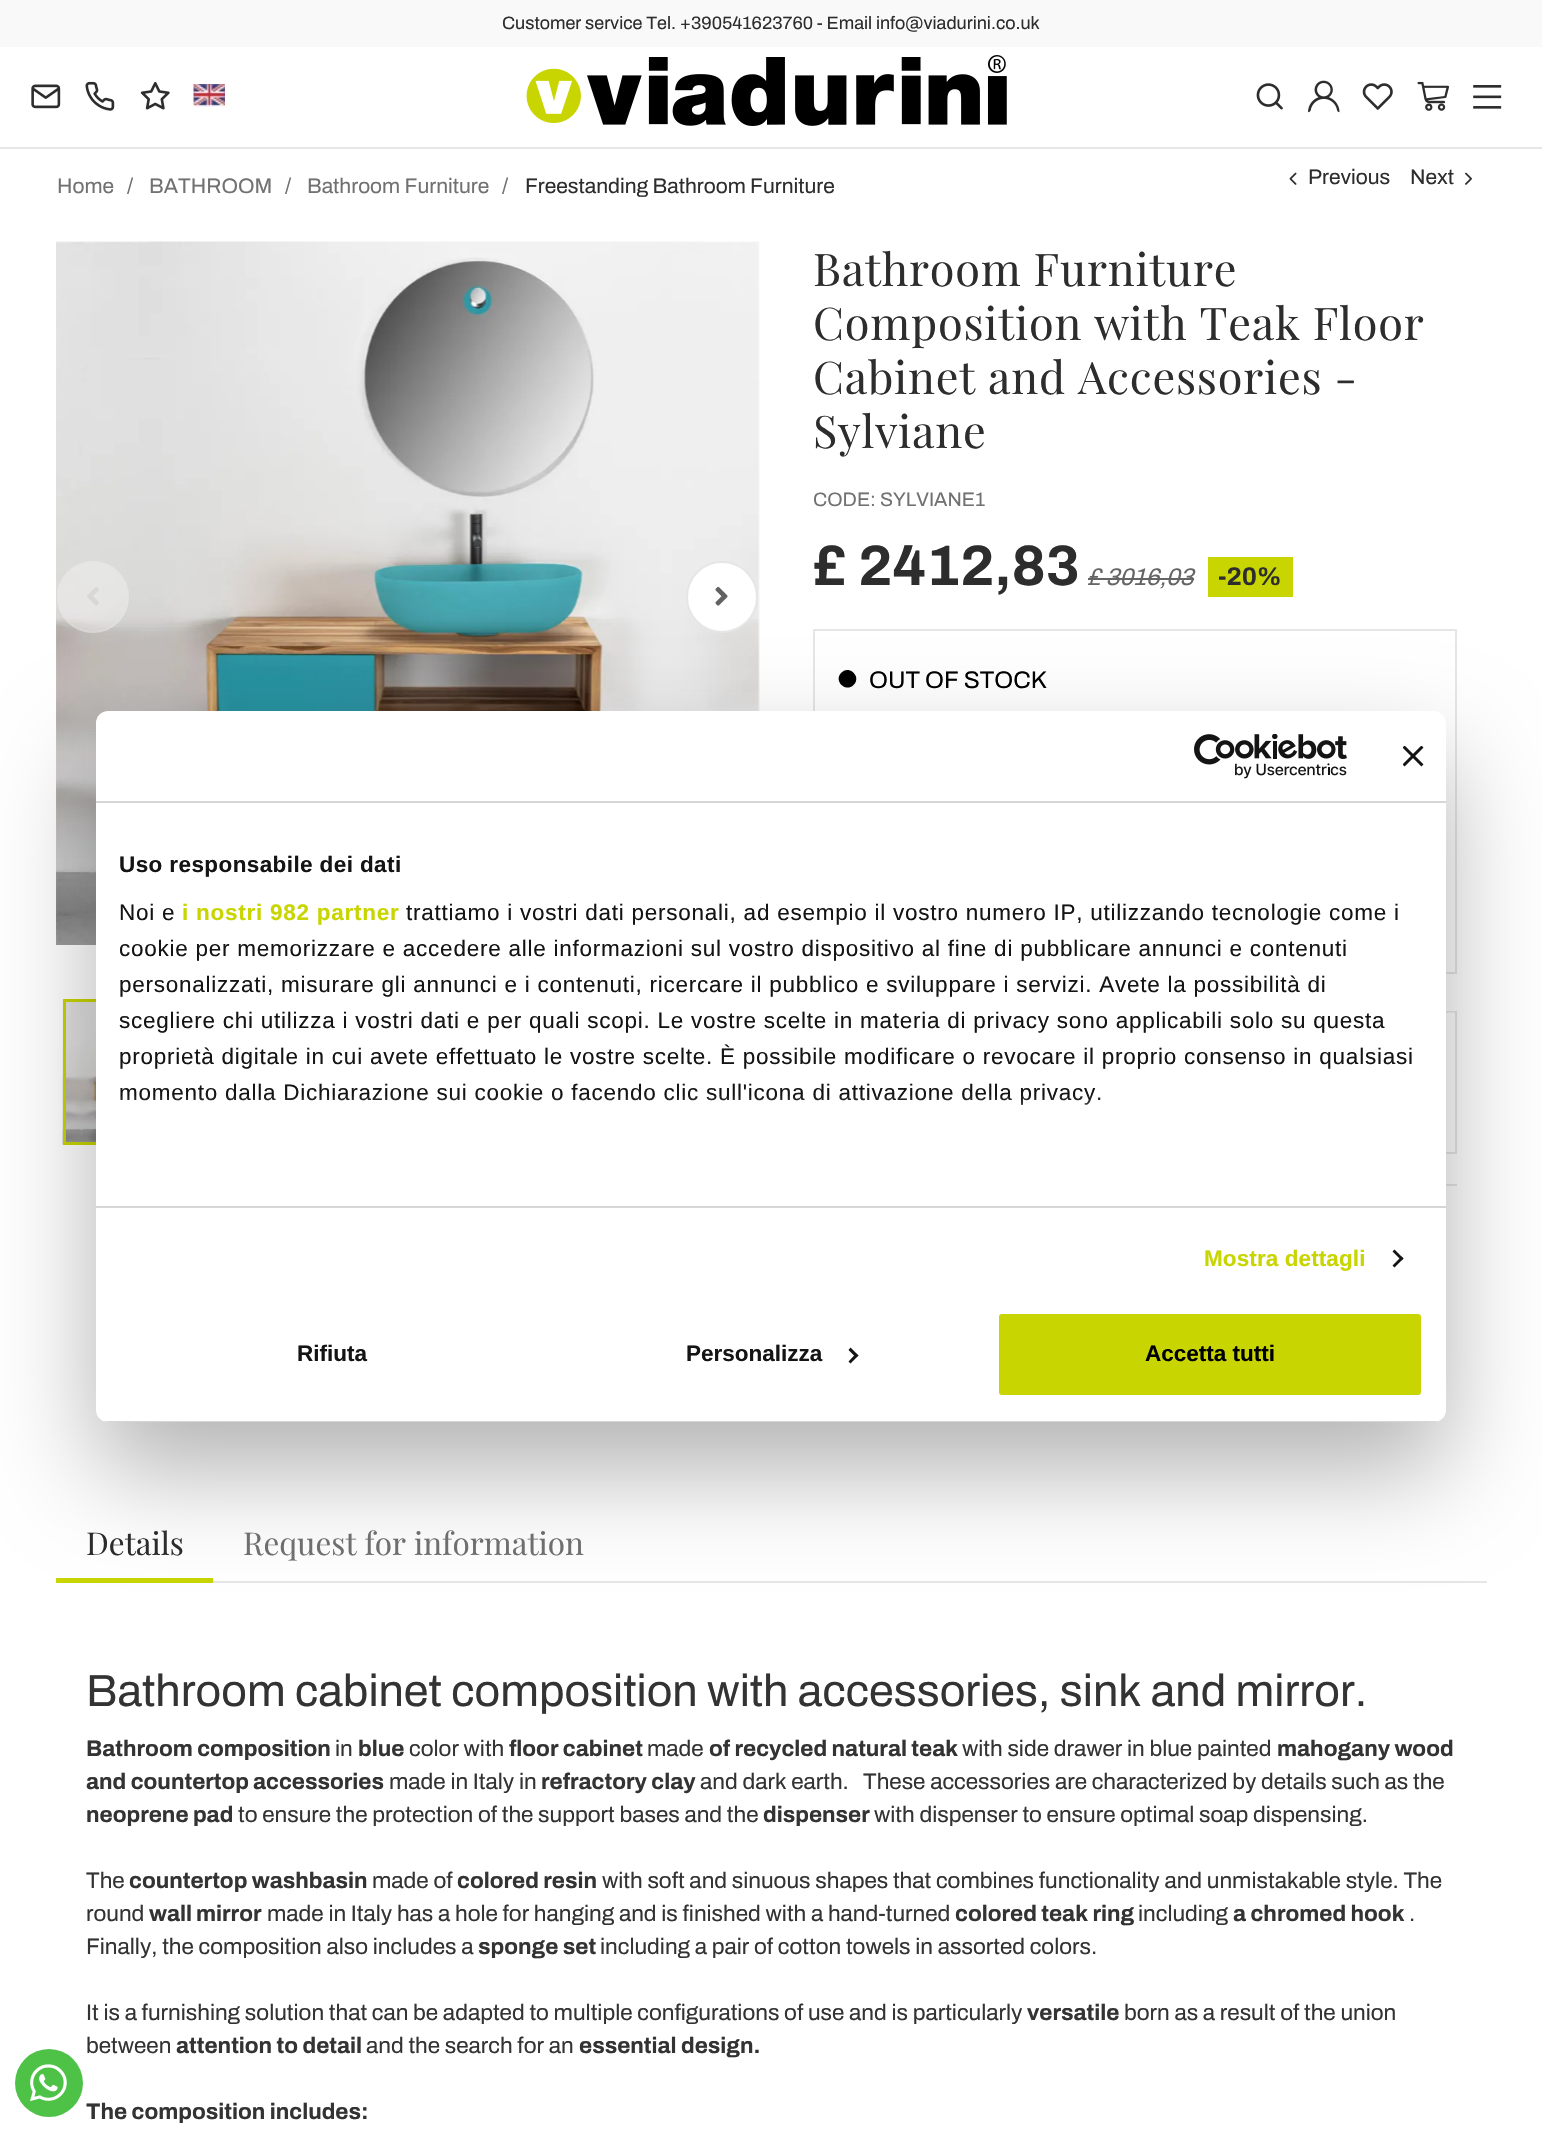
#include "include/core/SkBlurTypes.h"
#include "include/core/SkCanvas.h"
#include "include/core/SkData.h"
#include "include/core/SkFont.h"
#include "include/core/SkFontMgr.h"
#include "include/core/SkImage.h"
#include "include/core/SkMaskFilter.h"
#include "include/core/SkPaint.h"
#include "include/core/SkPathBuilder.h"
#include "include/core/SkTextBlob.h"
#include "include/effects/SkDashPathEffect.h"
#include "include/effects/SkGradientShader.h"
#include "include/utils/SkParsePath.h"

extern sk_sp<SkFontMgr> fontMgr;

void draw(SkCanvas* canvas) {
    SkPaint p;
    p.setAntiAlias(true);
    auto font = [&](const char* family, int weight, float size, bool italic = false) {
        SkFontStyle style(weight, SkFontStyle::kNormal_Width,
            italic ? SkFontStyle::kItalic_Slant : SkFontStyle::kUpright_Slant);
        SkFont result(fontMgr->matchFamilyStyle(family, style), size);
        result.setSubpixel(true);
        return result;
    };
    auto drawTracked = [&](const char* s, float x, float y, const SkFont& font, const SkPaint& ink, float letter, float word) {
        std::vector<SkGlyphID> glyphs(font.countText(s, strlen(s), SkTextEncoding::kUTF8));
        std::vector<float> xs(glyphs.size());
        font.textToGlyphs(s, strlen(s), SkTextEncoding::kUTF8, glyphs);
        font.getXPos(glyphs, xs, x);
        float extra = 0;
        for (size_t i = 0; i < glyphs.size(); i++) {
            xs[i] += extra;
            extra += letter + word * (glyphs[i] == font.unicharToGlyph(' '));
        }
        canvas->drawTextBlob(SkTextBlob::MakeFromPosHGlyphs(glyphs, xs, y, font), 0, 0, ink);
    };
    auto drawPhoto = [&](const char* path, float l, float t, float r, float b) {
        auto image = SkImages::DeferredFromEncodedData(SkData::MakeFromFileName(path));
        canvas->drawImageRect(image, SkRect::MakeLTRB(l, t, r, b), SkSamplingOptions());
    };
    canvas->clear(0xFFFFFFFF);
    p.setColor(0xFFF9F9F9);
    canvas->drawRect(SkRect::MakeLTRB(0, 0, 1542, 47), p);
    auto font1 = font("Archivo", 400, 18);
    p.setColor(0xFF2D2D2D);
    canvas->drawString("Customer service Tel. +390541623760 - Email info@viadurini.co.uk", 502, 29, font1, p);
    p.setColor(0xFFE6E6E6);
    canvas->drawRect(SkRect::MakeLTRB(0, 147, 1542, 149), p);
    drawPhoto("media/1.png", 31, 84, 61, 109);
    drawPhoto("media/2.png", 85, 81, 115, 111);
    drawPhoto("media/3.png", 140, 82, 170, 110);
    drawPhoto("media/4.png", 193, 84, 225, 107);
    drawPhoto("media/5.png", 526, 55, 1007, 126);
    drawPhoto("media/6.png", 1256, 83, 1283, 110);
    drawPhoto("media/7.png", 1308, 80, 1340, 113);
    drawPhoto("media/8.png", 1362, 83, 1393, 110);
    drawPhoto("media/9.png", 1417, 81, 1450, 111);
    drawPhoto("media/10.png", 1473, 85, 1502, 109);
    auto font2 = font("Archivo", 400, 21);
    p.setColor(0xFF717171);
    {
        const struct { const char* s; float x, y; } items[] = {
            {"Home", 57, 193},
            {"/", 127, 193},
            {"BATHROOM", 149, 193},
            {"/", 285, 193},
            {"Bathroom Furniture", 307, 193},
            {"/", 502, 193},
        };
        for (auto [s, x, y] : items) {
            canvas->drawString(s, x, y, font2, p);
        }
    }
    p.setColor(0xFF2D2D2D);
    canvas->drawString("Freestanding Bathroom Furniture", 525, 193, font2, p);
    drawPhoto("media/11.png", 1289, 172, 1297, 185);
    canvas->drawString("Previous", 1308, 184, font2, p);
    canvas->drawString("Next", 1410, 184, font2, p);
    drawPhoto("media/12.png", 1465, 172, 1472, 185);
    drawPhoto("media/13.png", 56, 241, 760, 945);
    p.setColor(0x4DFFFFFF);
    canvas->drawCircle(93, 597, 36, p);
    p.setStyle(SkPaint::kStroke_Style);
    p.setStrokeWidth(2);
    p.setColor(0x4DE6E6E6);
    canvas->drawCircle(93, 597, 35, p);
    drawPhoto("media/14.png", 87, 587, 99, 606);
    p.setStyle(SkPaint::kFill_Style);
    p.setColor(0xFFFFFFFF);
    canvas->drawCircle(722, 597, 35, p);
    p.setStyle(SkPaint::kStroke_Style);
    p.setColor(0xFFE6E6E6);
    canvas->drawCircle(722, 597, 35, p);
    drawPhoto("media/15.png", 715, 586, 728, 606);
    drawPhoto("media/16.png", 62, 999, 96, 1145);
    p.setStrokeWidth(3);
    p.setColor(0xFFC8D501);
    canvas->drawRect(SkRect::MakeLTRB(64.5f, 1000.5f, 205.5f, 1143.5f), p);
    auto font3 = font("Playfair Display", 400, 45);
    p.setStyle(SkPaint::kFill_Style);
    p.setColor(0xFF2D2D2D);
    {
        const struct { const char* s; float x, y; } items[] = {
            {"Bathroom Furniture", 813, 286},
            {"Composition with Teak Floor", 813, 340},
            {"Cabinet and Accessories -", 813, 394},
            {"Sylviane", 813, 448},
        };
        for (auto [s, x, y] : items) {
            drawTracked(s, x, y, font3, p, 0.8f, 0);
        }
    }
    auto font4 = font("Archivo", 400, 19.5f);
    p.setColor(0xFF717171);
    canvas->drawString("CODE: SYLVIANE1", 813, 506, font4, p);
    auto font5 = font("Archivo", 700, 57);
    p.setColor(0xFF2D2D2D);
    canvas->drawString("£ 2412,83", 813, 585, font5, p);
    auto font6 = font("Archivo", 400, 24, true);
    p.setColor(0xFF656565);
    canvas->drawString("£ 3016,03", 1087, 585, font6, p);
    canvas->drawRect(SkRect::MakeLTRB(1088, 578, 1194, 580), p);
    p.setColor(0xFFC8D501);
    canvas->drawRect(SkRect::MakeLTRB(1208, 557, 1293, 597), p);
    auto font7 = font("Archivo", 700, 25.5f);
    p.setColor(0xFF2D2D2D);
    canvas->drawString("-20%", 1218, 585, font7, p);
    p.setStyle(SkPaint::kStroke_Style);
    p.setStrokeWidth(2);
    p.setColor(0xFFE6E6E6);
    canvas->drawRect(SkRect::MakeLTRB(814, 630, 1456, 973), p);
    p.setStyle(SkPaint::kFill_Style);
    p.setColor(0xFF000000);
    canvas->drawPath(SkPathBuilder().moveTo(841.5f, 672.5f).cubicTo(849.5f, 664.5f, 862, 677, 853.5f, 685).cubicTo(845.5f, 693, 833, 680.5f, 841.5f, 672.5f).close().detach(), p);
    auto font8 = font("Archivo", 400, 24);
    canvas->drawString("OUT OF STOCK", 869, 688, font8, p);
    p.setStyle(SkPaint::kStroke_Style);
    p.setColor(0xFFE6E6E6);
    canvas->drawRect(SkRect::MakeLTRB(1315, 1012, 1456, 1153), p);
    drawPhoto("media/17.png", 1446, 1012, 1455, 1152);
    p.setStyle(SkPaint::kFill_Style);
    {
        const struct { float l, t, r, b; SkColor color; } items[] = {
            {1446, 1184, 1457, 1186, 0xFFE6E6E6},
            {213, 1581, 1487, 1583, 0xFFE6E6E6},
            {56, 1578, 213, 1583, 0xFFC8D501},
        };
        for (auto [l, t, r, b, color] : items) {
            p.setColor(color);
            canvas->drawRect(SkRect::MakeLTRB(l, t, r, b), p);
        }
    }
    auto font9 = font("Playfair Display", 400, 31.5f);
    p.setColor(0xFF2D2D2D);
    canvas->drawString("Details", 86, 1555, font9, p);
    p.setColor(0xFF717171);
    canvas->drawString("Request for information", 243, 1555, font9, p);
    auto font10 = font("Archivo", 400, 45);
    p.setColor(0xFF333333);
    canvas->drawString("Bathroom cabinet composition with accessories, sink and mirror.", 86, 1706, font10, p);
    auto font11 = font("Archivo", 700, 22.5f);
    canvas->drawString("Bathroom composition", 86, 1756, font11, p);
    auto font12 = font("Archivo", 400, 22.5f);
    canvas->drawString("in", 335, 1756, font12, p);
    canvas->drawString("blue", 358, 1756, font11, p);
    canvas->drawString("color with", 409, 1756, font12, p);
    canvas->drawString("floor cabinet", 509, 1756, font11, p);
    canvas->drawString("made", 647, 1756, font12, p);
    canvas->drawString("of recycled natural teak", 709, 1756, font11, p);
    canvas->drawString("with side drawer in blue painted", 962, 1756, font12, p);
    {
        const struct { const char* s; float x, y; } items[] = {
            {"mahogany wood", 1277, 1756},
            {"and countertop", 86, 1789},
            {"accessories", 253, 1789},
        };
        for (auto [s, x, y] : items) {
            canvas->drawString(s, x, y, font11, p);
        }
    }
    canvas->drawString("made in Italy in", 389, 1789, font12, p);
    canvas->drawString("refractory clay", 541, 1789, font11, p);
    canvas->drawString("and dark earth.", 700, 1789, font12, p);
    canvas->drawString("These accessories are characterized by details such as the", 863, 1789, font12, p);
    canvas->drawString("neoprene pad", 86, 1822, font11, p);
    canvas->drawString("to ensure the protection of the support bases and the", 238, 1822, font12, p);
    canvas->drawString("dispenser", 763, 1822, font11, p);
    canvas->drawString("with dispenser to ensure optimal soap dispensing.", 874, 1822, font12, p);
    canvas->drawString("The", 86, 1888, font12, p);
    canvas->drawString("countertop washbasin", 129, 1888, font11, p);
    canvas->drawString("made of", 372, 1888, font12, p);
    canvas->drawString("colored resin", 457, 1888, font11, p);
    canvas->drawString("with soft and sinuous shapes that combines functionality and unmistakable style. The", 602, 1888, font12, p);
    canvas->drawString("round", 86, 1921, font12, p);
    canvas->drawString("wall", 149, 1921, font11, p);
    canvas->drawString("mirror", 196, 1921, font11, p);
    canvas->drawString("made in Italy has a hole for hanging and is finished with a hand-turned", 267, 1921, font12, p);
    canvas->drawString("colored teak ring", 955, 1921, font11, p);
    canvas->drawString("including", 1138, 1921, font12, p);
    canvas->drawString("a chromed hook", 1233, 1921, font11, p);
    canvas->drawString(".", 1409, 1921, font12, p);
    canvas->drawString("Finally, the composition also includes a", 86, 1954, font12, p);
    canvas->drawString("sponge set", 478, 1954, font11, p);
    canvas->drawString("including a pair of cotton towels in assorted colors.", 600, 1954, font12, p);
    canvas->drawString("It is a furnishing solution that can be adapted to multiple configurations of use and is particularly", 86, 2020, font12, p);
    canvas->drawString("versatile", 1027, 2020, font11, p);
    canvas->drawString("born as a result of the union", 1124, 2020, font12, p);
    canvas->drawString("between", 86, 2053, font12, p);
    canvas->drawString("attention to detail", 176, 2053, font11, p);
    canvas->drawString("and the search for an", 366, 2053, font12, p);
    canvas->drawString("essential design.", 579, 2053, font11, p);
    canvas->drawString("The composition includes:", 86, 2119, font11, p);
    p.setColor(0x4D000000);
    p.setMaskFilter(SkMaskFilter::MakeBlur(kNormal_SkBlurStyle, 51));
    canvas->drawRoundRect(SkRect::MakeLTRB(96, 759, 1446, 1470), 12, 12, p);
    p.setMaskFilter(nullptr);
    p.setColor(0xFFFFFFFF);
    canvas->drawRoundRect(SkRect::MakeLTRB(96, 711, 1446, 1422), 12, 12, p);
    p.setColor(0xFFD6D6D6);
    canvas->drawRect(SkRect::MakeLTRB(96, 801, 1446, 803), p);
    drawPhoto("media/18.png", 1194, 734, 1347, 779);
    drawPhoto("media/19.png", 1403, 746, 1424, 767);
    canvas->drawRect(SkRect::MakeLTRB(96, 1206, 1446, 1208), p);
    auto font13 = font("Liberation Sans", 700, 22.5f);
    p.setColor(0xFF141414);
    drawTracked("Uso responsabile dei dati", 119, 872, font13, p, 0.4f, 0);
    auto font14 = font("Liberation Sans", 400, 22.5f);
    drawTracked("Noi e", 119, 920, font14, p, 0.75f, 0);
    p.setColor(0xFFC8D501);
    drawTracked("i nostri 982 partner", 182, 920, font13, p, 0.75f, 0);
    p.setColor(0xFF141414);
    {
        const struct { const char* s; float x, y; } items[] = {
            {"trattiamo i vostri dati personali, ad esempio il vostro numero IP, utilizzando tecnologie come i", 406, 920},
            {"cookie per memorizzare e accedere alle informazioni sul vostro dispositivo al fine di pubblicare annunci e contenuti", 119, 956},
            {"personalizzati, misurare gli annunci e i contenuti, ricercare il pubblico e sviluppare i servizi. Avete la possibilità di", 119, 992},
            {"scegliere chi utilizza i vostri dati e per quali scopi. Le vostre scelte in materia di privacy sono applicabili solo su questa", 119, 1028},
            {"proprietà digitale in cui avete effettuato le vostre scelte. È possibile modificare o revocare il proprio consenso in qualsiasi", 119, 1064},
            {"momento dalla Dichiarazione sui cookie o facendo clic sull'icona di attivazione della privacy.", 119, 1100},
        };
        for (auto [s, x, y] : items) {
            drawTracked(s, x, y, font14, p, 0.75f, 0);
        }
    }
    {
        const SkColor colors[] = {0xFFFFFFFF, 0xCCFFFFFF, 0x00FFFFFF};
        const float stops[] = {0, 0.5f, 1};
        const SkPoint ends[] = {{761, 1206}, {761, 1094}};
        p.setShader(SkGradientShader::MakeLinear(ends, colors, stops, 3, SkTileMode::kClamp));
        p.setAlpha(255);
    }
    canvas->drawRect(SkRect::MakeLTRB(120, 1096, 1100, 1105), p);
    p.setShader(nullptr);
    p.setColor(0xFFC8D501);
    drawTracked("Mostra dettagli", 1204, 1266, font13, p, 0.1f, 0);
    p.setColor(0xFF141414);
    canvas->drawPath(SkPathBuilder().moveTo(1394.5f, 1249.5f).lineTo(1403.5f, 1258.5f).lineTo(1401.5f, 1260.5f).lineTo(1392.5f, 1251.5f).close().detach(), p);
    canvas->drawPath(SkPathBuilder().moveTo(1401.5f, 1256.5f).lineTo(1403.5f, 1258.5f).lineTo(1394.5f, 1267.5f).lineTo(1392.5f, 1265.5f).close().detach(), p);
    canvas->save();
    canvas->clipPath(SkPathBuilder().moveTo(108, 711).lineTo(1434, 711).cubicTo(1440.5f, 711, 1446, 716.5f, 1446, 723).lineTo(1446, 1410).cubicTo(1446, 1416.5f, 1440.5f, 1422, 1434, 1422).lineTo(108, 1422).cubicTo(101.5f, 1422, 96, 1416.5f, 96, 1410).lineTo(96, 723).cubicTo(96, 716.5f, 101.5f, 711, 108, 711).close().detach(), true);
    p.setColor(0xFFD6D6D6);
    canvas->drawRect(SkRect::MakeLTRB(96, 1421, 1446, 1422), p);
    canvas->restore();
    p.setColor(0xFF141414);
    canvas->drawString("Rifiuta", 297, 1361, font13, p);
    canvas->drawString("Personalizza", 686, 1361, font13, p);
    canvas->drawPath(SkPathBuilder().moveTo(850.5f, 1347.5f).lineTo(858.5f, 1355.5f).lineTo(856, 1357.5f).lineTo(848.5f, 1350).close().detach(), p);
    canvas->drawPath(SkPathBuilder().moveTo(856, 1353.5f).lineTo(858.5f, 1355.5f).lineTo(850.5f, 1363.5f).lineTo(848.5f, 1361.5f).close().detach(), p);
    p.setColor(0xFFC8D501);
    canvas->drawRoundRect(SkRect::MakeLTRB(997.5f, 1312.5f, 1422.5f, 1396.5f), 4.5f, 4.5f, p);
    p.setStyle(SkPaint::kStroke_Style);
    p.setStrokeWidth(3);
    p.setColor(0xFFFFFFFF);
    canvas->drawRoundRect(SkRect::MakeLTRB(997.5f, 1312.5f, 1422.5f, 1396.5f), 4.5f, 4.5f, p);
    p.setStyle(SkPaint::kFill_Style);
    p.setColor(0xFF000000);
    canvas->drawString("Accetta tutti", 1145, 1361, font13, p);
    p.setColor(0xFF4DC247);
    canvas->drawCircle(49, 2083, 34, p);
    drawPhoto("media/20.png", 30, 2064, 67, 2102);
}
